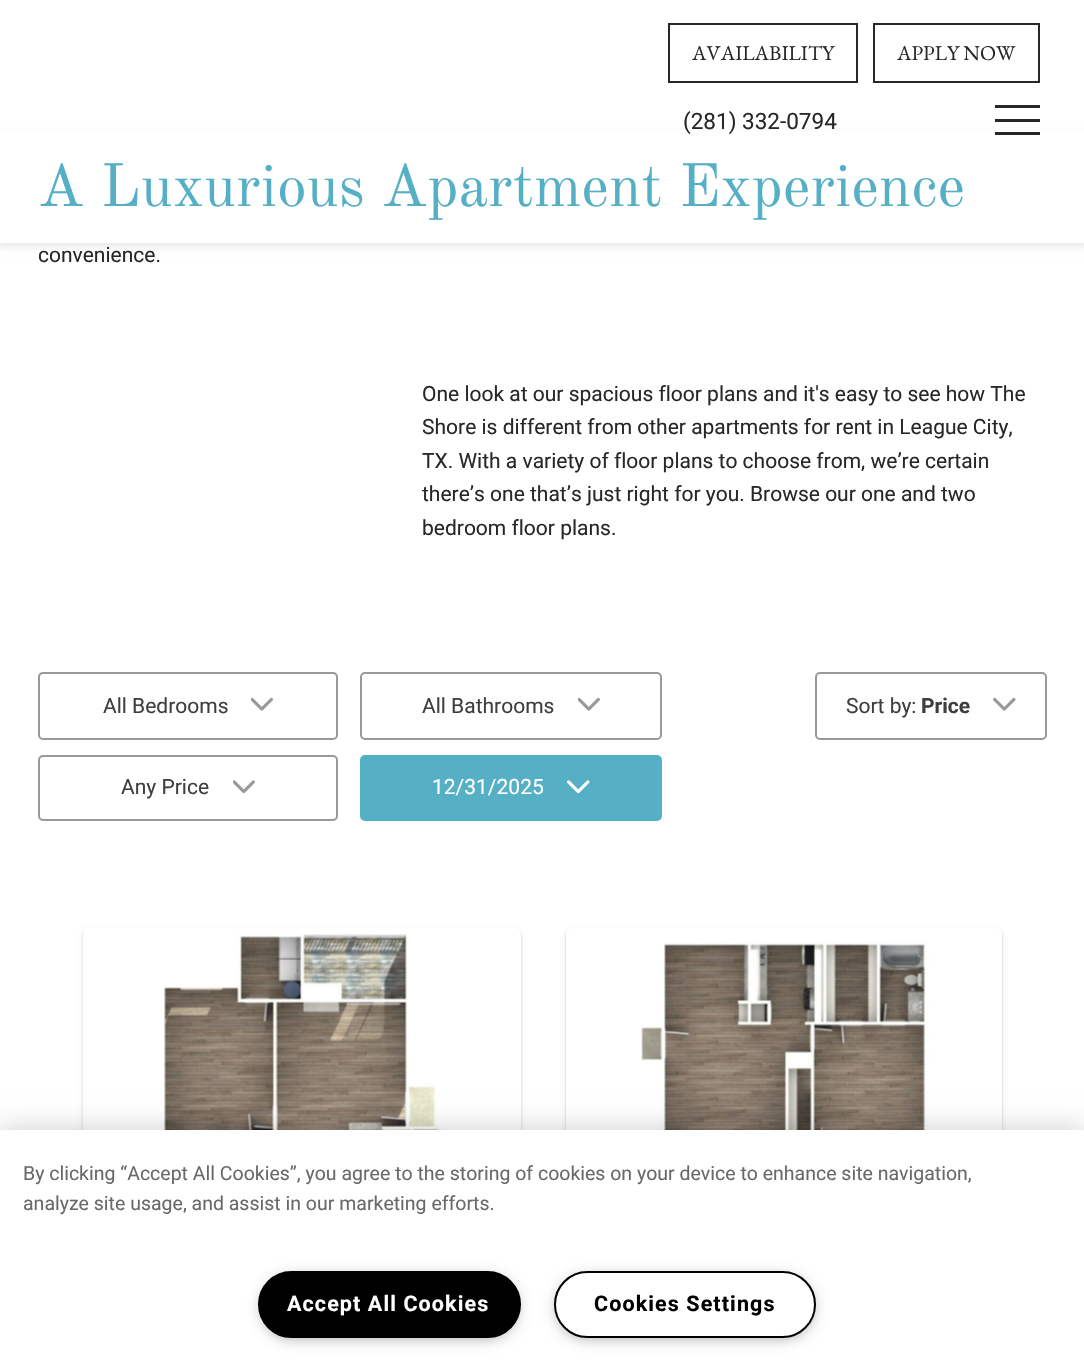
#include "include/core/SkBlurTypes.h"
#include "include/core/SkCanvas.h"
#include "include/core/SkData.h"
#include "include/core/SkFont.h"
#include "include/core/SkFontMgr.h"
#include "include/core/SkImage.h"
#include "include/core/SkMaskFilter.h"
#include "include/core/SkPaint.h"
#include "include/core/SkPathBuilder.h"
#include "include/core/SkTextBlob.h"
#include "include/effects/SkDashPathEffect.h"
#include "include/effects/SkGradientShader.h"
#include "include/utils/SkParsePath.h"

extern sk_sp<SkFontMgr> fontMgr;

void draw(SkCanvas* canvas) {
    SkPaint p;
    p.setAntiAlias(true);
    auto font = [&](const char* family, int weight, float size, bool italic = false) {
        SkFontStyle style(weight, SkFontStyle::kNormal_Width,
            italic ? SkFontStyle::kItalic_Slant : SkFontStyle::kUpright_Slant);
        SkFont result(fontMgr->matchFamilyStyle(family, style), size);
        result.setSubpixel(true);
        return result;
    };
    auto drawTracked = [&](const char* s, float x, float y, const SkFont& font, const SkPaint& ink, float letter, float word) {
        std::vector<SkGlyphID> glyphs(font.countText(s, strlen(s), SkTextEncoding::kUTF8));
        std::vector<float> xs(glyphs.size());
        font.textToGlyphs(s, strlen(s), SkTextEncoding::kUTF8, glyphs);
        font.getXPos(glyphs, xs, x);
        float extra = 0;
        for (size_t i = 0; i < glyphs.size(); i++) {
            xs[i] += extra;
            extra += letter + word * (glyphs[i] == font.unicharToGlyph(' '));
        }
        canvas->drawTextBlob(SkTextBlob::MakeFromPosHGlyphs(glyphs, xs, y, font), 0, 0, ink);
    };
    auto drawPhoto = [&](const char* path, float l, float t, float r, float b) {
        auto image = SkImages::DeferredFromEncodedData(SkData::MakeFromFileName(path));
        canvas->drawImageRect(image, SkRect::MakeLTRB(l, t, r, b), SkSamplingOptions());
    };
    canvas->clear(0xFFFFFFFF);
    p.setStyle(SkPaint::kStroke_Style);
    p.setStrokeWidth(2);
    p.setColor(0xFF282828);
    canvas->drawRect(SkRect::MakeLTRB(669, 24, 857, 82), p);
    auto font1 = font("EB Garamond", 400, 21);
    p.setStyle(SkPaint::kFill_Style);
    canvas->drawString("AVAILABILITY", 692, 60, font1, p);
    p.setStyle(SkPaint::kStroke_Style);
    canvas->drawRect(SkRect::MakeLTRB(874, 24, 1039, 82), p);
    p.setStyle(SkPaint::kFill_Style);
    canvas->drawString("APPLY NOW", 897, 60, font1, p);
    p.setColor(0x1A000000);
    p.setMaskFilter(SkMaskFilter::MakeBlur(kNormal_SkBlurStyle, 4));
    canvas->drawRect(SkRect::MakeLTRB(-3, 135, 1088, 246), p);
    p.setMaskFilter(nullptr);
    p.setColor(0xFFFFFFFF);
    canvas->drawRect(SkRect::MakeLTRB(0, 130, 1084, 243), p);
    auto font2 = font("Old Standard TT", 400, 60);
    p.setColor(0xFF55B0C6);
    canvas->drawString("A Luxurious Apartment Experience", 38, 206, font2, p);
    auto font3 = font("Roboto", 400, 21);
    p.setColor(0xFF282828);
    {
        const struct { const char* s; float x, y; } items[] = {
            {"convenience.", 38, 262},
            {"One look at our spacious floor plans and it's easy to see how The", 422, 401},
            {"Shore is different from other apartments for rent in League City,", 422, 434},
            {"TX. With a variety of floor plans to choose from, we’re certain", 422, 468},
            {"there’s one that’s just right for you. Browse our one and two", 422, 501},
            {"bedroom floor plans.", 422, 535},
        };
        for (auto [s, x, y] : items) {
            canvas->drawString(s, x, y, font3, p);
        }
    }
    p.setStyle(SkPaint::kStroke_Style);
    p.setColor(0xFF999999);
    canvas->drawRoundRect(SkRect::MakeLTRB(39, 673, 337, 739), 4, 4, p);
    p.setStyle(SkPaint::kFill_Style);
    p.setColor(0xFF3F3F3F);
    canvas->drawString("All Bedrooms", 103, 713, font3, p);
    drawPhoto("media/1.png", 251, 697, 273, 711);
    p.setStyle(SkPaint::kStroke_Style);
    p.setColor(0xFF999999);
    canvas->drawRoundRect(SkRect::MakeLTRB(361, 673, 661, 739), 4, 4, p);
    p.setStyle(SkPaint::kFill_Style);
    p.setColor(0xFF3F3F3F);
    canvas->drawString("All Bathrooms", 422, 713, font3, p);
    drawPhoto("media/2.png", 578, 697, 600, 711);
    p.setStyle(SkPaint::kStroke_Style);
    p.setColor(0xFF999999);
    canvas->drawRoundRect(SkRect::MakeLTRB(39, 756, 337, 820), 4, 4, p);
    p.setStyle(SkPaint::kFill_Style);
    p.setColor(0xFF3F3F3F);
    canvas->drawString("Any Price", 121, 794, font3, p);
    drawPhoto("media/3.png", 233, 780, 255, 794);
    p.setColor(0xFF55B0C6);
    canvas->drawRoundRect(SkRect::MakeLTRB(361, 756, 661, 820), 4, 4, p);
    p.setStyle(SkPaint::kStroke_Style);
    canvas->drawRoundRect(SkRect::MakeLTRB(361, 756, 661, 820), 4, 4, p);
    p.setStyle(SkPaint::kFill_Style);
    p.setColor(0xFFFFFFFF);
    canvas->drawString("12/31/2025", 432, 794, font3, p);
    drawPhoto("media/4.png", 567, 780, 590, 794);
    p.setStyle(SkPaint::kStroke_Style);
    p.setColor(0xFF999999);
    canvas->drawRoundRect(SkRect::MakeLTRB(816, 673, 1046, 739), 4, 4, p);
    p.setStyle(SkPaint::kFill_Style);
    p.setColor(0xFF3F3F3F);
    canvas->drawString("Sort by:", 846, 713, font3, p);
    auto font4 = font("Roboto", 700, 21);
    canvas->drawString("Price", 921, 713, font4, p);
    drawPhoto("media/5.png", 993, 697, 1016, 711);
    p.setColor(0x1F000000);
    p.setMaskFilter(SkMaskFilter::MakeBlur(kNormal_SkBlurStyle, 2));
    canvas->drawRoundRect(SkRect::MakeLTRB(83, 929, 521, 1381), 8, 8, p);
    p.setMaskFilter(nullptr);
    p.setColor(0x24000000);
    p.setMaskFilter(SkMaskFilter::MakeBlur(kNormal_SkBlurStyle, 1));
    canvas->drawRoundRect(SkRect::MakeLTRB(83, 929, 521, 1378), 8, 8, p);
    p.setMaskFilter(nullptr);
    p.setColor(0xFFFFFFFF);
    canvas->drawPath(SkPathBuilder().moveTo(91, 927).lineTo(513, 927).cubicTo(517.5f, 927, 521, 930.5f, 521, 935).lineTo(521, 1227).lineTo(83, 1227).lineTo(83, 935).cubicTo(83, 930.5f, 86.5f, 927, 91, 927).close().detach(), p);
    drawPhoto("media/6.png", 163, 926, 447, 1130);
    p.setColor(0x1F000000);
    p.setMaskFilter(SkMaskFilter::MakeBlur(kNormal_SkBlurStyle, 2));
    canvas->drawRoundRect(SkRect::MakeLTRB(566, 929, 1002, 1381), 8, 8, p);
    p.setMaskFilter(nullptr);
    p.setColor(0x24000000);
    p.setMaskFilter(SkMaskFilter::MakeBlur(kNormal_SkBlurStyle, 1));
    canvas->drawRoundRect(SkRect::MakeLTRB(566, 929, 1002, 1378), 8, 8, p);
    p.setMaskFilter(nullptr);
    p.setColor(0xFFFFFFFF);
    canvas->drawPath(SkPathBuilder().moveTo(574, 927).lineTo(994, 927).cubicTo(998.5f, 927, 1002, 930.5f, 1002, 935).lineTo(1002, 1227).lineTo(566, 1227).lineTo(566, 935).cubicTo(566, 930.5f, 569.5f, 927, 574, 927).close().detach(), p);
    drawPhoto("media/7.png", 641, 926, 932, 1130);
    auto font5 = font("Roboto", 400, 22.5f);
    p.setColor(0xFF282828);
    canvas->drawString("(281) 332-0794", 683, 129, font5, p);
    {
        const struct { float l, t, r, b; SkColor color; } items[] = {
            {995, 105, 1040, 108, 0xFF282828},
            {995, 119, 1040, 122, 0xFF282828},
            {995, 132, 1040, 135, 0xFF282828},
        };
        for (auto [l, t, r, b, color] : items) {
            p.setColor(color);
            canvas->drawRect(SkRect::MakeLTRB(l, t, r, b), p);
        }
    }
    p.setColor(0x33000000);
    p.setMaskFilter(SkMaskFilter::MakeBlur(kNormal_SkBlurStyle, 13.5f));
    canvas->drawRect(SkRect::MakeLTRB(0, 1130, 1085, 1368), p);
    p.setMaskFilter(nullptr);
    p.setColor(0xFFFFFFFF);
    canvas->drawRect(SkRect::MakeLTRB(0, 1130, 1084, 1367), p);
    auto font6 = font("Roboto", 400, 19.5f);
    p.setColor(0xFF696969);
    canvas->drawString("By clicking “Accept All Cookies”, you agree to the storing of cookies on your device to enhance site navigation,", 23, 1180, font6, p);
    canvas->drawString("analyze site usage, and assist in our marketing efforts.", 23, 1210, font6, p);
    p.setColor(0xFF999999);
    p.setMaskFilter(SkMaskFilter::MakeBlur(kNormal_SkBlurStyle, 7.5f));
    canvas->drawRoundRect(SkRect::MakeLTRB(263, 1278, 516, 1337), 29.5f, 29.5f, p);
    p.setMaskFilter(nullptr);
    p.setColor(0xFF000000);
    canvas->drawRoundRect(SkRect::MakeLTRB(259, 1272, 520, 1337), 32.5f, 32.5f, p);
    p.setStyle(SkPaint::kStroke_Style);
    canvas->drawRoundRect(SkRect::MakeLTRB(259, 1272, 520, 1337), 32.5f, 32.5f, p);
    auto font7 = font("Roboto", 700, 21.5f);
    p.setStyle(SkPaint::kFill_Style);
    p.setColor(0xFFFFFFFF);
    drawTracked("Accept All Cookies", 287, 1311, font7, p, 1.1f, 0);
    p.setColor(0xFF999999);
    p.setMaskFilter(SkMaskFilter::MakeBlur(kNormal_SkBlurStyle, 7.5f));
    canvas->drawRoundRect(SkRect::MakeLTRB(558, 1278, 812, 1337), 29.5f, 29.5f, p);
    p.setMaskFilter(nullptr);
    p.setColor(0xFFFFFFFF);
    canvas->drawRoundRect(SkRect::MakeLTRB(555, 1272, 815, 1337), 32.5f, 32.5f, p);
    p.setStyle(SkPaint::kStroke_Style);
    p.setColor(0xFF000000);
    canvas->drawRoundRect(SkRect::MakeLTRB(555, 1272, 815, 1337), 32.5f, 32.5f, p);
    p.setStyle(SkPaint::kFill_Style);
    drawTracked("Cookies Settings", 594, 1311, font7, p, 1.1f, 0);
}
